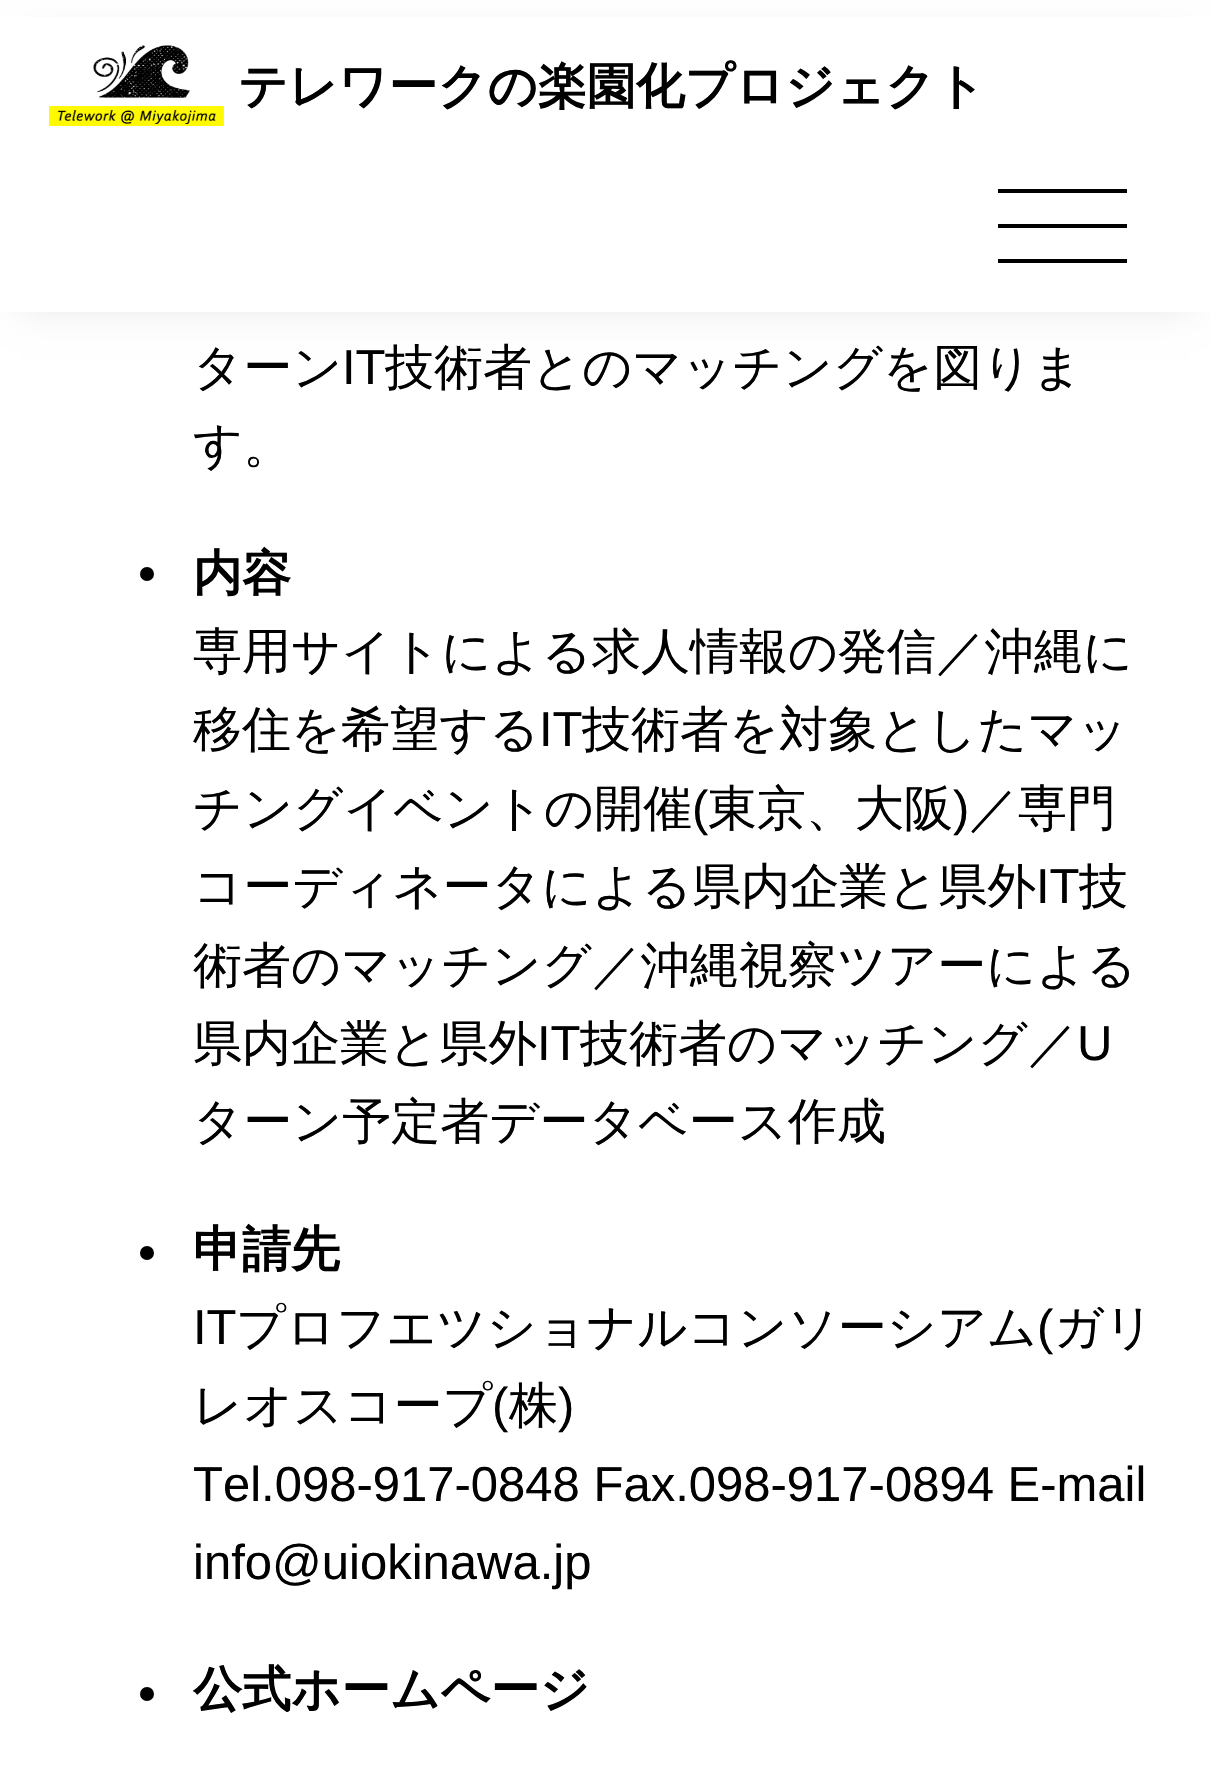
#include "include/core/SkBlurTypes.h"
#include "include/core/SkCanvas.h"
#include "include/core/SkData.h"
#include "include/core/SkFont.h"
#include "include/core/SkFontMgr.h"
#include "include/core/SkImage.h"
#include "include/core/SkMaskFilter.h"
#include "include/core/SkPaint.h"
#include "include/core/SkPathBuilder.h"
#include "include/core/SkTextBlob.h"
#include "include/effects/SkDashPathEffect.h"
#include "include/effects/SkGradientShader.h"
#include "include/utils/SkParsePath.h"

extern sk_sp<SkFontMgr> fontMgr;

void draw(SkCanvas* canvas) {
    SkPaint p;
    p.setAntiAlias(true);
    auto font = [&](const char* family, int weight, float size, bool italic = false) {
        SkFontStyle style(weight, SkFontStyle::kNormal_Width,
            italic ? SkFontStyle::kItalic_Slant : SkFontStyle::kUpright_Slant);
        SkFont result(fontMgr->matchFamilyStyle(family, style), size);
        result.setSubpixel(true);
        return result;
    };
    auto drawPhoto = [&](const char* path, float l, float t, float r, float b) {
        auto image = SkImages::DeferredFromEncodedData(SkData::MakeFromFileName(path));
        canvas->drawImageRect(image, SkRect::MakeLTRB(l, t, r, b), SkSamplingOptions());
    };
    canvas->clear(0xFFFFFFFF);
    p.setColor(0x1A000000);
    p.setMaskFilter(SkMaskFilter::MakeBlur(kNormal_SkBlurStyle, 17.5f));
    canvas->drawRect(SkRect::MakeLTRB(21, 39, 1190, 308), p);
    p.setMaskFilter(nullptr);
    p.setColor(0xFFFFFFFF);
    canvas->drawRect(SkRect::MakeLTRB(0, 17, 1211, 312), p);
    drawPhoto("media/1.png", 49, 45, 224, 126);
    auto font1 = font("WenQuanYi Zen Hei", 700, 49);
    p.setColor(0xFF000000);
    canvas->drawString("テレワークの楽園化プロジェクト", 238, 103, font1, p);
    {
        const struct { float l, t, r, b; SkColor color; } items[] = {
            {998, 189, 1127, 193, 0xFF000000},
            {998, 224, 1127, 228, 0xFF000000},
            {998, 259, 1127, 263, 0xFF000000},
        };
        for (auto [l, t, r, b, color] : items) {
            p.setColor(color);
            canvas->drawRect(SkRect::MakeLTRB(l, t, r, b), p);
        }
    }
    auto font2 = font("WenQuanYi Zen Hei", 500, 49);
    canvas->drawString("ターン", 193, 384, font2, p);
    auto font3 = font("Liberation Sans", 400, 49);
    canvas->drawString("IT", 342, 384, font3, p);
    canvas->drawString("技術者とのマッチングを図りま", 385, 384, font2, p);
    canvas->drawString("す。", 193, 462, font2, p);
    canvas->drawCircle(147, 574, 7, p);
    canvas->drawString("内容", 193, 590, font1, p);
    canvas->drawString("専用サイトによる求人情報の発信／沖縄に", 193, 668, font2, p);
    canvas->drawString("移住を希望する", 193, 746, font2, p);
    canvas->drawString("IT", 539, 746, font3, p);
    canvas->drawString("技術者を対象としたマッ", 582, 746, font2, p);
    canvas->drawString("チングイベントの開催", 193, 825, font2, p);
    canvas->drawString("(", 692, 825, font3, p);
    canvas->drawString("東京、大阪", 708, 825, font2, p);
    canvas->drawString(")", 953, 825, font3, p);
    canvas->drawString("／専門", 969, 825, font2, p);
    canvas->drawString("コーディネータによる県内企業と県外", 193, 903, font2, p);
    canvas->drawString("IT", 1036, 903, font3, p);
    {
        const struct { const char* s; float x, y; } items[] = {
            {"技", 1079, 903},
            {"術者のマッチング／沖縄視察ツアーによる", 193, 982},
            {"県内企業と県外", 193, 1060},
        };
        for (auto [s, x, y] : items) {
            canvas->drawString(s, x, y, font2, p);
        }
    }
    canvas->drawString("IT", 537, 1060, font3, p);
    canvas->drawString("技術者のマッチング／", 580, 1060, font2, p);
    canvas->drawString("U", 1077, 1060, font3, p);
    canvas->drawString("ターン予定者データベース作成", 193, 1138, font2, p);
    canvas->drawCircle(147, 1253, 7, p);
    canvas->drawString("申請先", 193, 1266, font1, p);
    canvas->drawString("IT", 193, 1344, font3, p);
    canvas->drawString("プロフエツショナルコンソーシアム", 236, 1344, font2, p);
    canvas->drawString("(", 1037, 1344, font3, p);
    canvas->drawString("ガリ", 1054, 1344, font2, p);
    canvas->drawString("レオスコープ", 193, 1422, font2, p);
    canvas->drawString("(", 492, 1422, font3, p);
    canvas->drawString("株", 509, 1422, font2, p);
    {
        const struct { const char* s; float x, y; } items[] = {
            {")", 558, 1422},
            {"Tel.098-917-0848 Fax.098-917-0894 E-mail", 193, 1501},
            {"info@uiokinawa.jp", 193, 1579},
        };
        for (auto [s, x, y] : items) {
            canvas->drawString(s, x, y, font3, p);
        }
    }
    canvas->drawCircle(147, 1694, 7, p);
    canvas->drawString("公式ホームページ", 193, 1706, font1, p);
}
